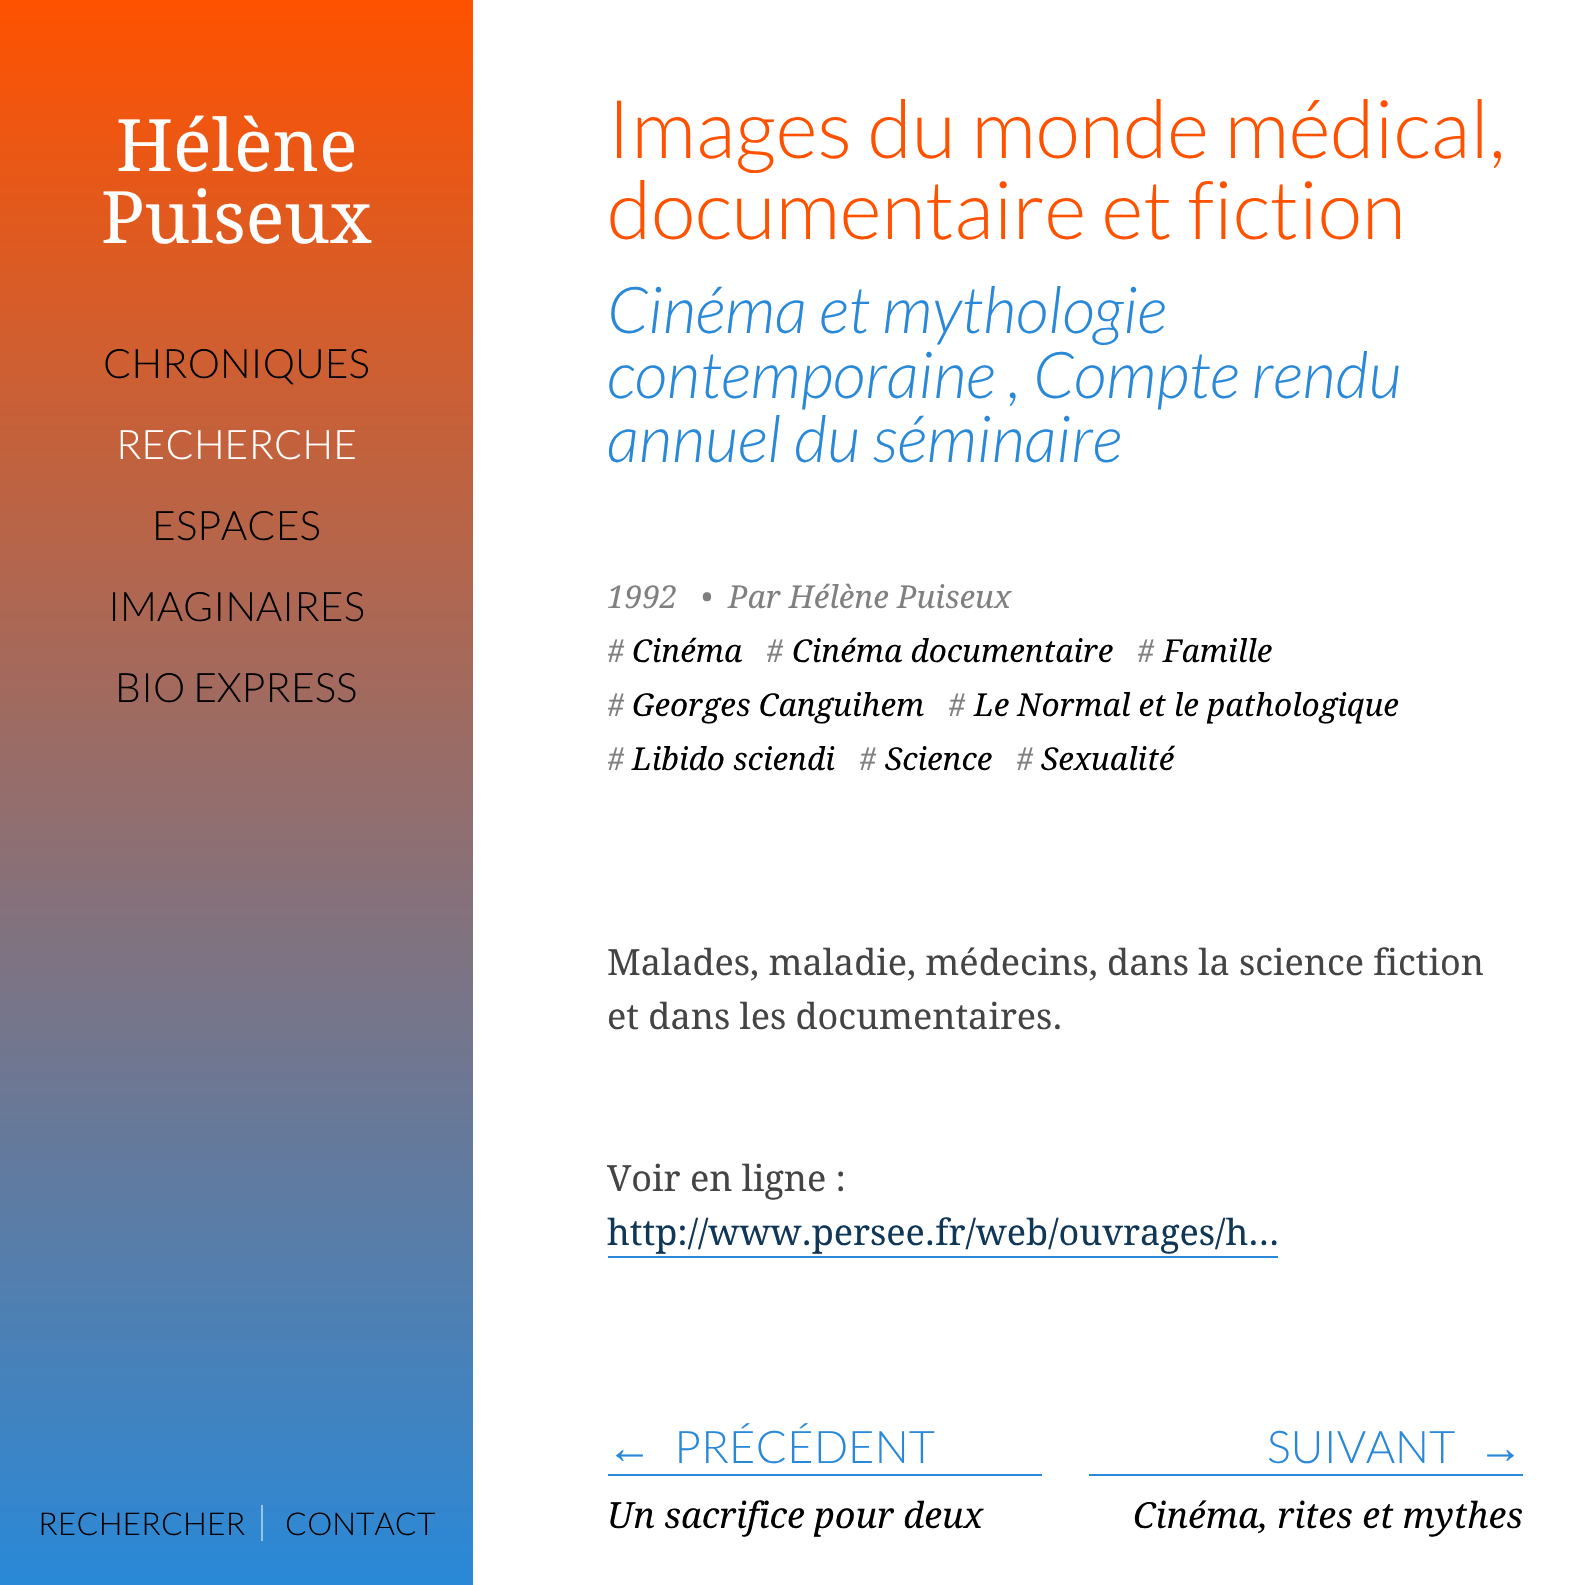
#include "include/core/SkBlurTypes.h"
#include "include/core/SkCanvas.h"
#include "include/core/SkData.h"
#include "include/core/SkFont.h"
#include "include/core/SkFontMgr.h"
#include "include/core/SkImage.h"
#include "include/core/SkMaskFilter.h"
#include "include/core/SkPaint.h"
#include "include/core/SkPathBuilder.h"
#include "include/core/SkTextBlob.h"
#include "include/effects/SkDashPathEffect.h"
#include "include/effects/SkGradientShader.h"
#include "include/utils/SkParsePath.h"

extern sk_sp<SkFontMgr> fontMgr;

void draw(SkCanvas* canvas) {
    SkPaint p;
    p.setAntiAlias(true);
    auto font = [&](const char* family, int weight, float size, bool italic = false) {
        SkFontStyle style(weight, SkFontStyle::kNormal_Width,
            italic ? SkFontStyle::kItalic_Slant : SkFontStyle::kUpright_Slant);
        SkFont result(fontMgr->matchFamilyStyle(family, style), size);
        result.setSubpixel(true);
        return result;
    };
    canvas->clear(0xFFFFFFFF);
    {
        const SkColor colors[] = {0xFFFF5200, 0xFF2989D8};
        const float stops[] = {0, 1};
        const SkPoint ends[] = {{236, 0}, {236, 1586}};
        p.setShader(SkGradientShader::MakeLinear(ends, colors, stops, 2, SkTileMode::kClamp));
        p.setAlpha(255);
    }
    canvas->drawRect(SkRect::MakeLTRB(0, 0, 473, 1585), p);
    {
        const SkColor colors[] = {0xFFFFA980, 0xFF94C4EC};
        const float stops[] = {0, 1};
        const SkPoint ends[] = {{236, 0}, {236, 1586}};
        p.setShader(SkGradientShader::MakeLinear(ends, colors, stops, 2, SkTileMode::kClamp));
        p.setAlpha(255);
    }
    canvas->drawRect(SkRect::MakeLTRB(261, 1505, 263, 1541), p);
    auto font1 = font("Droid Serif", 400, 72);
    p.setShader(nullptr);
    p.setColor(0xFFFFFFFF);
    canvas->drawString("Hélène", 116, 171, font1, p);
    canvas->drawString("Puiseux", 101, 243, font1, p);
    auto font2 = font("Lato", 300, 40.5f);
    p.setColor(0xFF000000);
    canvas->drawString("CHRONIQUES", 103, 378, font2, p);
    p.setColor(0xFFFFFFFF);
    canvas->drawString("RECHERCHE", 116, 459, font2, p);
    p.setColor(0xFF000000);
    {
        const struct { const char* s; float x, y; } items[] = {
            {"ESPACES", 152, 540},
            {"IMAGINAIRES", 108, 621},
            {"BIO EXPRESS", 115, 702},
        };
        for (auto [s, x, y] : items) {
            canvas->drawString(s, x, y, font2, p);
        }
    }
    auto font3 = font("Lato", 300, 31.5f);
    canvas->drawString("RECHERCHER", 38, 1535, font3, p);
    canvas->drawString("CONTACT", 285, 1535, font3, p);
    auto font4 = font("Lato", 300, 81);
    p.setColor(0xFFFF5200);
    canvas->drawString("Images du monde médical,", 607, 158, font4, p);
    canvas->drawString("documentaire et fiction", 607, 239, font4, p);
    auto font5 = font("Lato", 300, 64.75f, true);
    p.setColor(0xFF2989D8);
    {
        const struct { const char* s; float x, y; } items[] = {
            {"Cinéma et mythologie", 607, 333},
            {"contemporaine , Compte rendu", 607, 398},
            {"annuel du séminaire", 607, 462},
        };
        for (auto [s, x, y] : items) {
            canvas->drawString(s, x, y, font5, p);
        }
    }
    auto font6 = font("Droid Serif", 400, 31.5f, true);
    p.setColor(0xFF808080);
    {
        const struct { const char* s; float x, y; } items[] = {
            {"1992", 607, 608},
            {"•", 701, 608},
            {"Par Hélène Puiseux", 728, 608},
            {"#", 607, 662},
        };
        for (auto [s, x, y] : items) {
            canvas->drawString(s, x, y, font6, p);
        }
    }
    p.setColor(0xFF000000);
    canvas->drawString("Cinéma", 632, 662, font6, p);
    p.setColor(0xFF808080);
    canvas->drawString("#", 766, 662, font6, p);
    p.setColor(0xFF000000);
    canvas->drawString("Cinéma documentaire", 792, 662, font6, p);
    p.setColor(0xFF808080);
    canvas->drawString("#", 1137, 662, font6, p);
    p.setColor(0xFF000000);
    canvas->drawString("Famille", 1163, 662, font6, p);
    p.setColor(0xFF808080);
    canvas->drawString("#", 607, 716, font6, p);
    p.setColor(0xFF000000);
    canvas->drawString("Georges Canguihem", 632, 716, font6, p);
    p.setColor(0xFF808080);
    canvas->drawString("#", 948, 716, font6, p);
    p.setColor(0xFF000000);
    canvas->drawString("Le Normal et le pathologique", 974, 716, font6, p);
    p.setColor(0xFF808080);
    canvas->drawString("#", 607, 770, font6, p);
    p.setColor(0xFF000000);
    canvas->drawString("Libido sciendi", 632, 770, font6, p);
    p.setColor(0xFF808080);
    canvas->drawString("#", 859, 770, font6, p);
    p.setColor(0xFF000000);
    canvas->drawString("Science", 885, 770, font6, p);
    p.setColor(0xFF808080);
    canvas->drawString("#", 1016, 770, font6, p);
    p.setColor(0xFF000000);
    canvas->drawString("Sexualité", 1041, 770, font6, p);
    auto font7 = font("Droid Serif", 400, 36);
    p.setColor(0xFF444444);
    {
        const struct { const char* s; float x, y; } items[] = {
            {"Malades, maladie, médecins, dans la science fiction", 607, 975},
            {"et dans les documentaires.", 607, 1029},
            {"Voir en ligne :", 607, 1191},
        };
        for (auto [s, x, y] : items) {
            canvas->drawString(s, x, y, font7, p);
        }
    }
    p.setColor(0xFF103758);
    canvas->drawString("http://www.persee.fr/web/ouvrages/h...", 607, 1245, font7, p);
    p.setColor(0xFF2989D8);
    canvas->drawRect(SkRect::MakeLTRB(608, 1256, 1278, 1258), p);
    canvas->drawRect(SkRect::MakeLTRB(608, 1474, 1042, 1476), p);
    auto font8 = font("Liberation Sans", 400, 45);
    canvas->drawString("←", 607, 1463, font8, p);
    auto font9 = font("Lato", 300, 45);
    canvas->drawString("PRÉCÉDENT", 674, 1463, font9, p);
    auto font10 = font("Droid Serif", 400, 36, true);
    p.setColor(0xFF000000);
    canvas->drawString("Un sacrifice pour deux", 607, 1528, font10, p);
    p.setColor(0xFF2989D8);
    canvas->drawRect(SkRect::MakeLTRB(1089, 1474, 1523, 1476), p);
    canvas->drawString("SUIVANT", 1267, 1463, font9, p);
    canvas->drawString("→", 1478, 1463, font8, p);
    p.setColor(0xFF000000);
    canvas->drawString("Cinéma, rites et mythes", 1133, 1528, font10, p);
}
